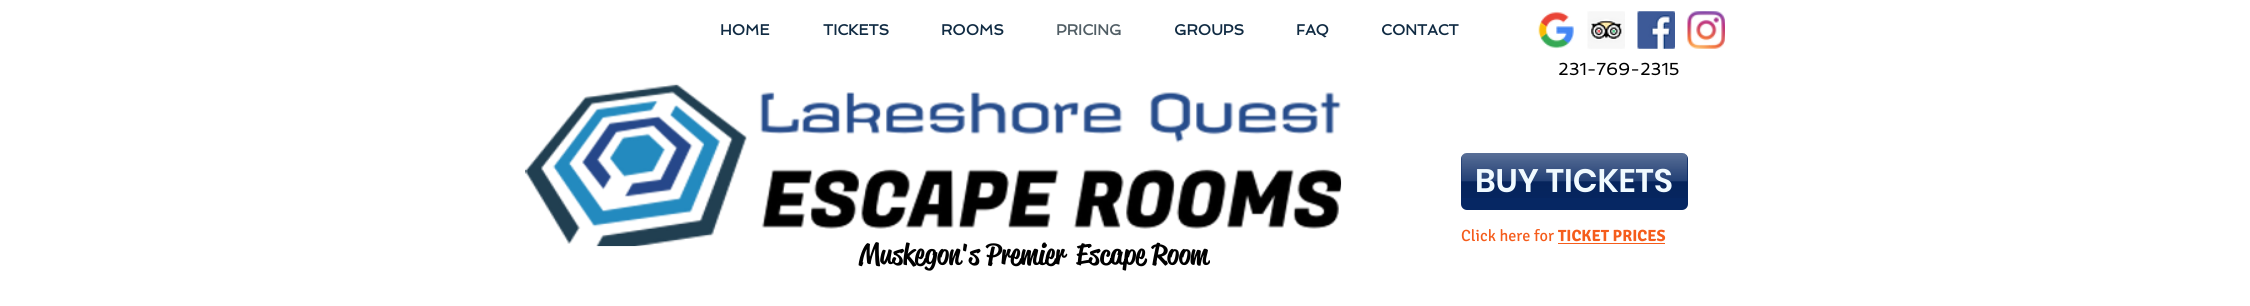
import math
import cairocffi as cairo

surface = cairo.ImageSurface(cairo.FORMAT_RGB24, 2250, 306)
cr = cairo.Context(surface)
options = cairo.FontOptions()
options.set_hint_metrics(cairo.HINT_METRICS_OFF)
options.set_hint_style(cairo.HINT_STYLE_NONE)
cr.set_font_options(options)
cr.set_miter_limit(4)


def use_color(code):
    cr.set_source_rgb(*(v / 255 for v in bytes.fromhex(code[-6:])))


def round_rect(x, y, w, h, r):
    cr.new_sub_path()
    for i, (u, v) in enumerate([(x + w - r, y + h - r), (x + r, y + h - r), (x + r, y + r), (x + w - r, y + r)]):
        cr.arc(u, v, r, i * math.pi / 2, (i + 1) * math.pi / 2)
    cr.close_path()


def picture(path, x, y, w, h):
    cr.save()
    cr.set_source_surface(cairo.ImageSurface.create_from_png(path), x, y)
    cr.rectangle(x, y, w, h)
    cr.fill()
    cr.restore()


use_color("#ffffff")
cr.paint()
cr.select_font_face("Spinnaker", cairo.FONT_SLANT_NORMAL, cairo.FONT_WEIGHT_BOLD)
cr.set_font_size(15)
use_color("#102b43")
cr.move_to(720, 35)
cr.show_text("HOME")
cr.move_to(823, 35)
cr.show_text("TICKETS")
cr.move_to(941, 35)
cr.show_text("ROOMS")
use_color("#515e65")
cr.move_to(1056, 35)
cr.show_text("PRICING")
use_color("#102b43")
cr.move_to(1174, 35)
cr.show_text("GROUPS")
cr.move_to(1296, 35)
cr.show_text("FAQ")
cr.move_to(1381, 35)
cr.show_text("CONTACT")
picture("img1.png", 1538, 11, 36, 38)
picture("img2.png", 1587, 11, 38, 38)
picture("img3.png", 1637, 11, 38, 38)
picture("img4.png", 1687, 11, 38, 38)
cr.select_font_face("Spinnaker")
cr.set_font_size(17.5)
use_color("#000000")
cr.move_to(1558, 75)
cr.show_text("231-769-2315")
use_color("#062763")
round_rect(1461, 153, 227, 57, 6)
cr.fill()
picture("img5.png", 1461, 153, 227, 45)
cr.select_font_face("Poppins SemiBold")
cr.set_font_size(32.5)
use_color("#f0faff")
cr.move_to(1475, 192)
cr.show_text("BUY TICKETS")
cr.select_font_face("Signika")
cr.set_font_size(16.25)
use_color("#f55c1b")
cr.move_to(1461, 241)
cr.show_text("Click here for")
cr.select_font_face("Signika", cairo.FONT_SLANT_NORMAL, cairo.FONT_WEIGHT_BOLD)
cr.move_to(1558, 241)
cr.show_text("TICKET PRICES")
cr.rectangle(1558, 243, 107, 1)
cr.fill()
picture("img6.png", 525, 83, 817, 164)
cr.select_font_face("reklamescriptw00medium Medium")
cr.set_font_size(28.75)
use_color("#000000")
cr.move_to(859, 264)
cr.show_text("Muskegon's Premier")
cr.move_to(1076, 264)
cr.show_text("Escape Room")
surface.write_to_png("result.png")
